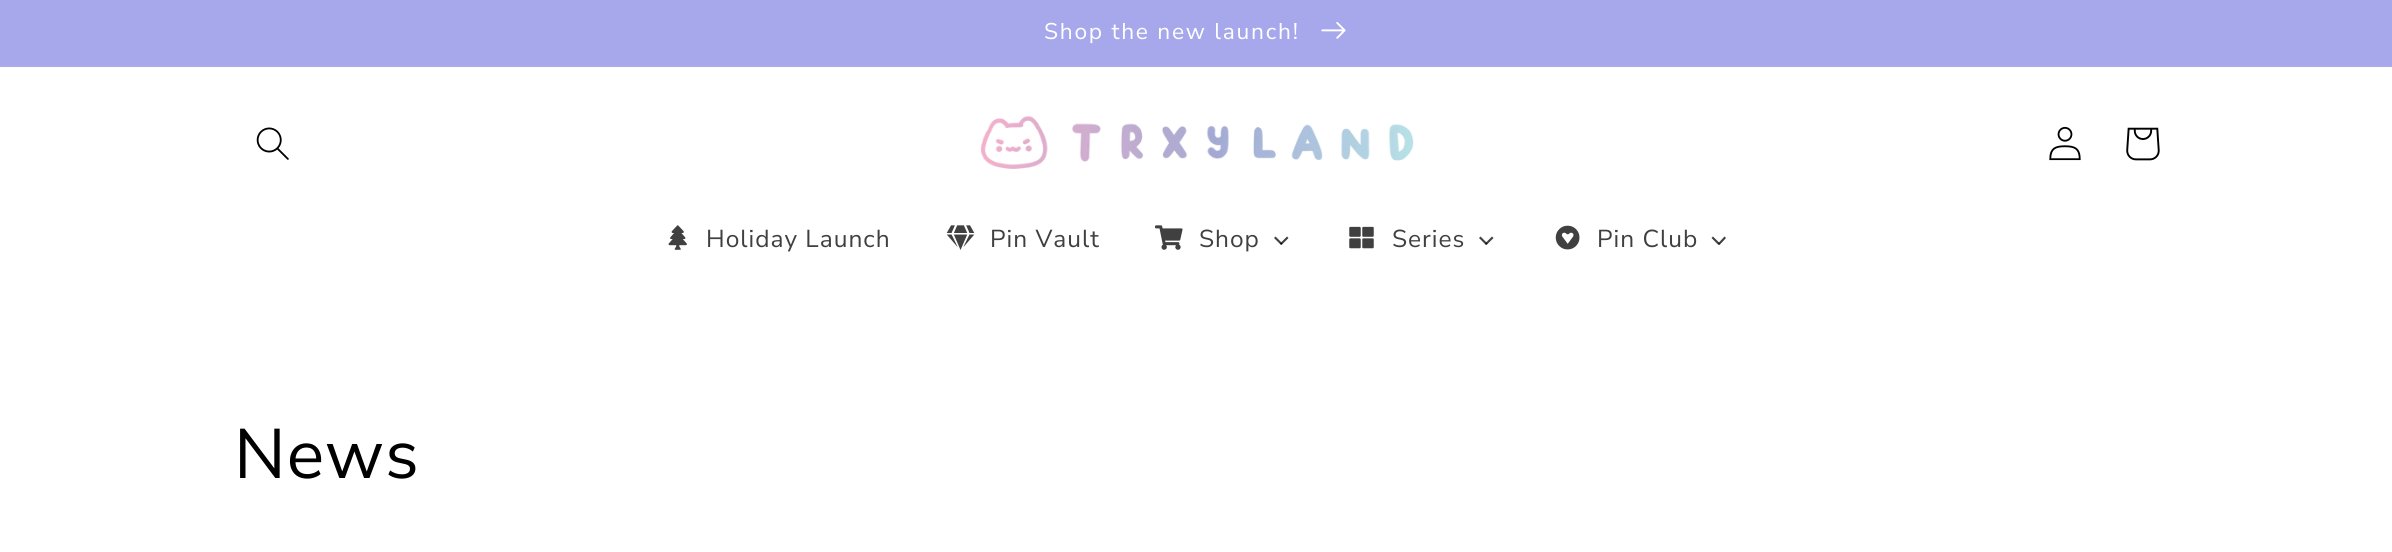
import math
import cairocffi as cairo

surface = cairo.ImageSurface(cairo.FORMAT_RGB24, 2392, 552)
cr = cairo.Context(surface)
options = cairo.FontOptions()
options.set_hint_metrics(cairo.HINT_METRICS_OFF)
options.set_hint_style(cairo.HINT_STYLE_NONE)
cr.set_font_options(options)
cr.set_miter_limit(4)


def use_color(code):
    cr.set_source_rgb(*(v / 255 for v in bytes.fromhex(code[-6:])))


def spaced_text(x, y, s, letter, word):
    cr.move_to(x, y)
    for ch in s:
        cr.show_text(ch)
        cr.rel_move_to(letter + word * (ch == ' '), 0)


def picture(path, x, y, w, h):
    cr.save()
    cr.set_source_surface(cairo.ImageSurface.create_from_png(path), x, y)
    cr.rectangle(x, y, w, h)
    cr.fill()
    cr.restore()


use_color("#ffffff")
cr.paint()
use_color("#a9a9ec")
cr.rectangle(0, 65, 2392, 2)
cr.fill()
use_color("#a6a8eb")
cr.rectangle(0, 0, 2392, 65)
cr.fill()
cr.select_font_face("Nunito Sans")
cr.set_font_size(22.75)
use_color("#ffffff")
spaced_text(1044, 39, "Shop the new launch!", 1.75, 0)
picture("img1.png", 1321, 22, 25, 17)
picture("img2.png", 256, 127, 33, 33)
picture("img3.png", 980, 116, 434, 53)
picture("img4.png", 2049, 126, 32, 35)
picture("img5.png", 2126, 127, 34, 34)
picture("img6.png", 668, 225, 19, 25)
cr.set_font_size(24.5)
use_color("#404040")
spaced_text(706, 247, "Holiday Launch", 1, 0)
picture("img7.png", 946, 225, 29, 25)
spaced_text(990, 247, "Pin Vault", 1, 0)
picture("img8.png", 1155, 225, 28, 25)
spaced_text(1199, 247, "Shop", 1, 0)
cr.new_path()
cr.move_to(1287, 236.5)
cr.line_to(1288.5, 238)
cr.line_to(1281.5, 245)
cr.line_to(1280, 243.5)
cr.close_path()
cr.fill()
cr.set_source_rgba(0, 0, 0, 0.75)
cr.new_path()
cr.move_to(1275.5, 236.5)
cr.line_to(1282.5, 243.5)
cr.line_to(1281, 245)
cr.line_to(1274, 238)
cr.close_path()
cr.fill()
picture("img9.png", 1349, 226, 25, 23)
use_color("#404040")
spaced_text(1392, 247, "Series", 1, 0)
cr.new_path()
cr.move_to(1492, 236.5)
cr.line_to(1493.5, 238)
cr.line_to(1486.5, 245)
cr.line_to(1485, 243.5)
cr.close_path()
cr.fill()
cr.set_source_rgba(0, 0, 0, 0.75)
cr.new_path()
cr.move_to(1480.5, 236.5)
cr.line_to(1487.5, 243.5)
cr.line_to(1486, 245)
cr.line_to(1479, 238)
cr.close_path()
cr.fill()
picture("img10.png", 1555, 225, 25, 25)
use_color("#404040")
spaced_text(1597, 247, "Pin Club", 1, 0)
cr.new_path()
cr.move_to(1724.5, 236.5)
cr.line_to(1726, 238)
cr.line_to(1719.5, 245)
cr.line_to(1718, 243.5)
cr.close_path()
cr.fill()
cr.set_source_rgba(0, 0, 0, 0.75)
cr.new_path()
cr.move_to(1713, 236.5)
cr.line_to(1720, 243.5)
cr.line_to(1718.5, 245)
cr.line_to(1711.5, 238)
cr.close_path()
cr.fill()
cr.set_font_size(70)
use_color("#000000")
spaced_text(234, 478, "News", 1, 0)
surface.write_to_png("result.png")
